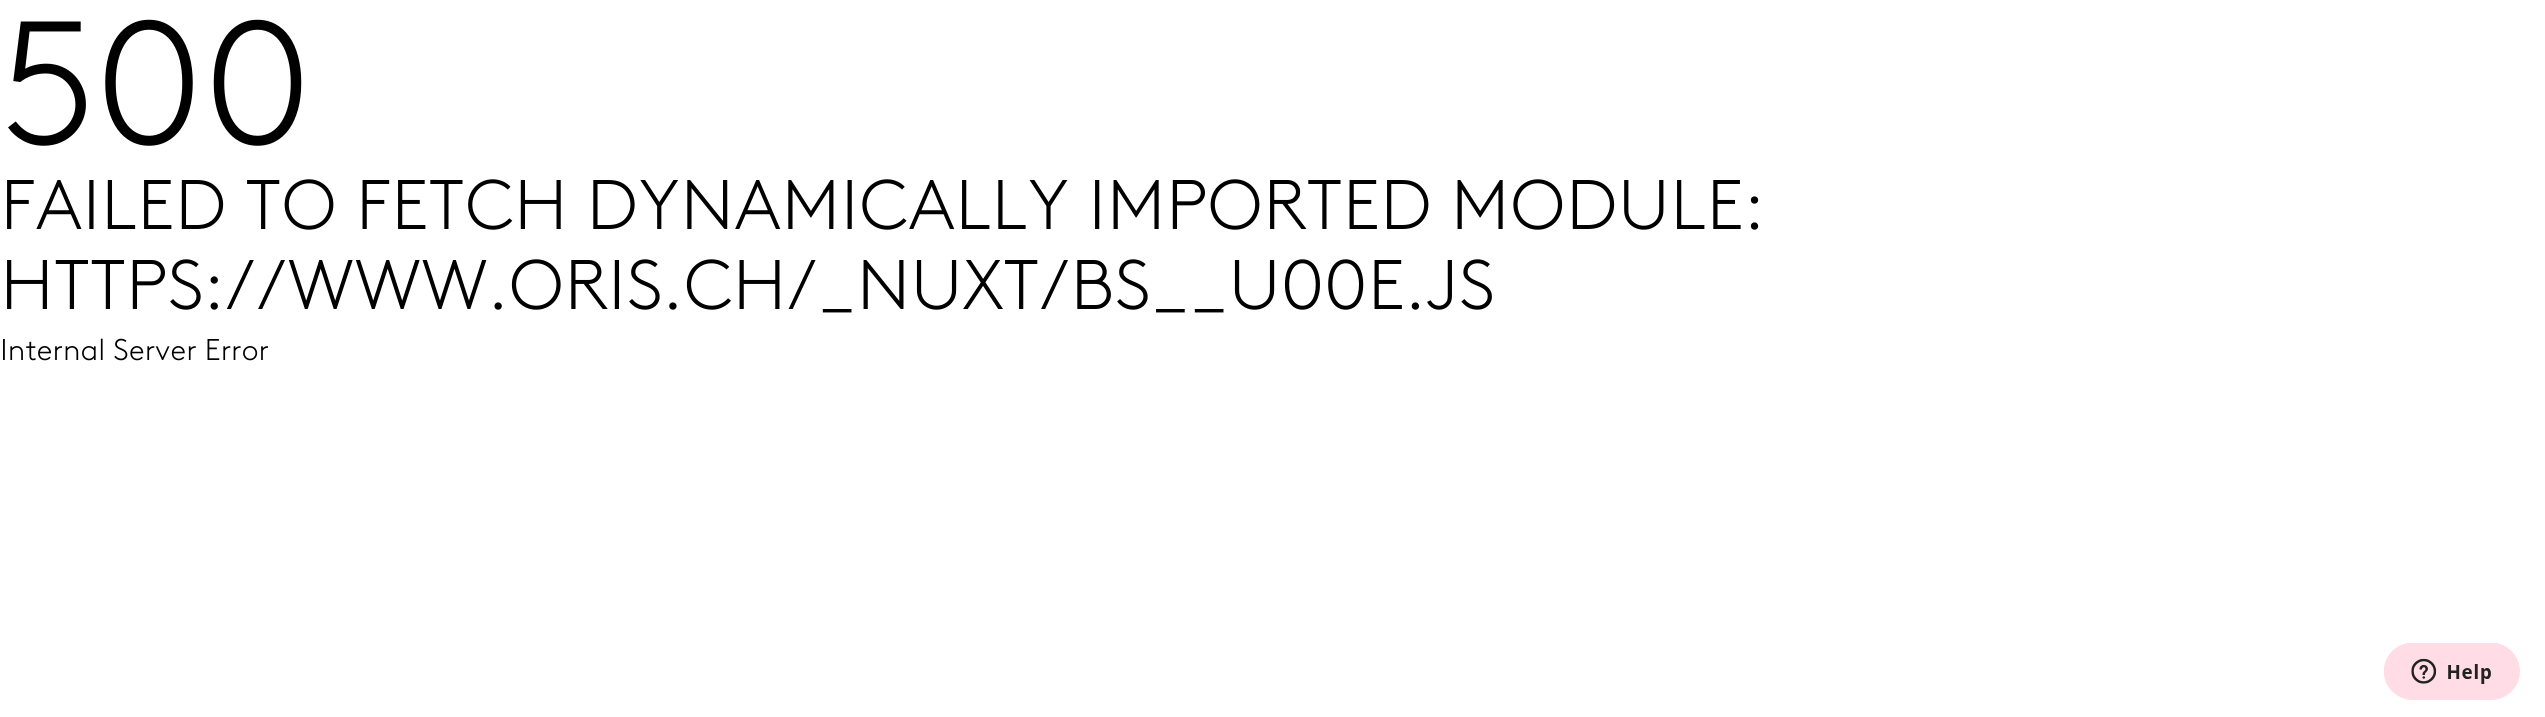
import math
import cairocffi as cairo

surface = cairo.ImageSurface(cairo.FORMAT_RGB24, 2545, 717)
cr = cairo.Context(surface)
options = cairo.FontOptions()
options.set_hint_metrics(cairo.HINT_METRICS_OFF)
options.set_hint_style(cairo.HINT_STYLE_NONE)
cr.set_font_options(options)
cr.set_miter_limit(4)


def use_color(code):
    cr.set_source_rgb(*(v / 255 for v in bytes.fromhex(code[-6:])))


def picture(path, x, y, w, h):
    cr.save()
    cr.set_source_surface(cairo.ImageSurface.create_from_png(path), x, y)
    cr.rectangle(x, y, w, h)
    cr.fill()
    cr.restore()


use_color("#ffffff")
cr.paint()
cr.select_font_face("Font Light")
cr.set_font_size(175)
use_color("#000000")
cr.move_to(0, 144)
cr.show_text("500")
cr.set_font_size(70)
cr.move_to(0, 229)
cr.show_text("FAILED TO FETCH DYNAMICALLY IMPORTED MODULE:")
cr.move_to(0, 309)
cr.show_text("HTTPS://WWW.ORIS.CH/_NUXT/BS__U00E.JS")
cr.set_font_size(30)
cr.move_to(0, 360)
cr.show_text("Internal Server Error")
picture("img1.png", 2384, 642, 136, 58)
surface.write_to_png("result.png")
